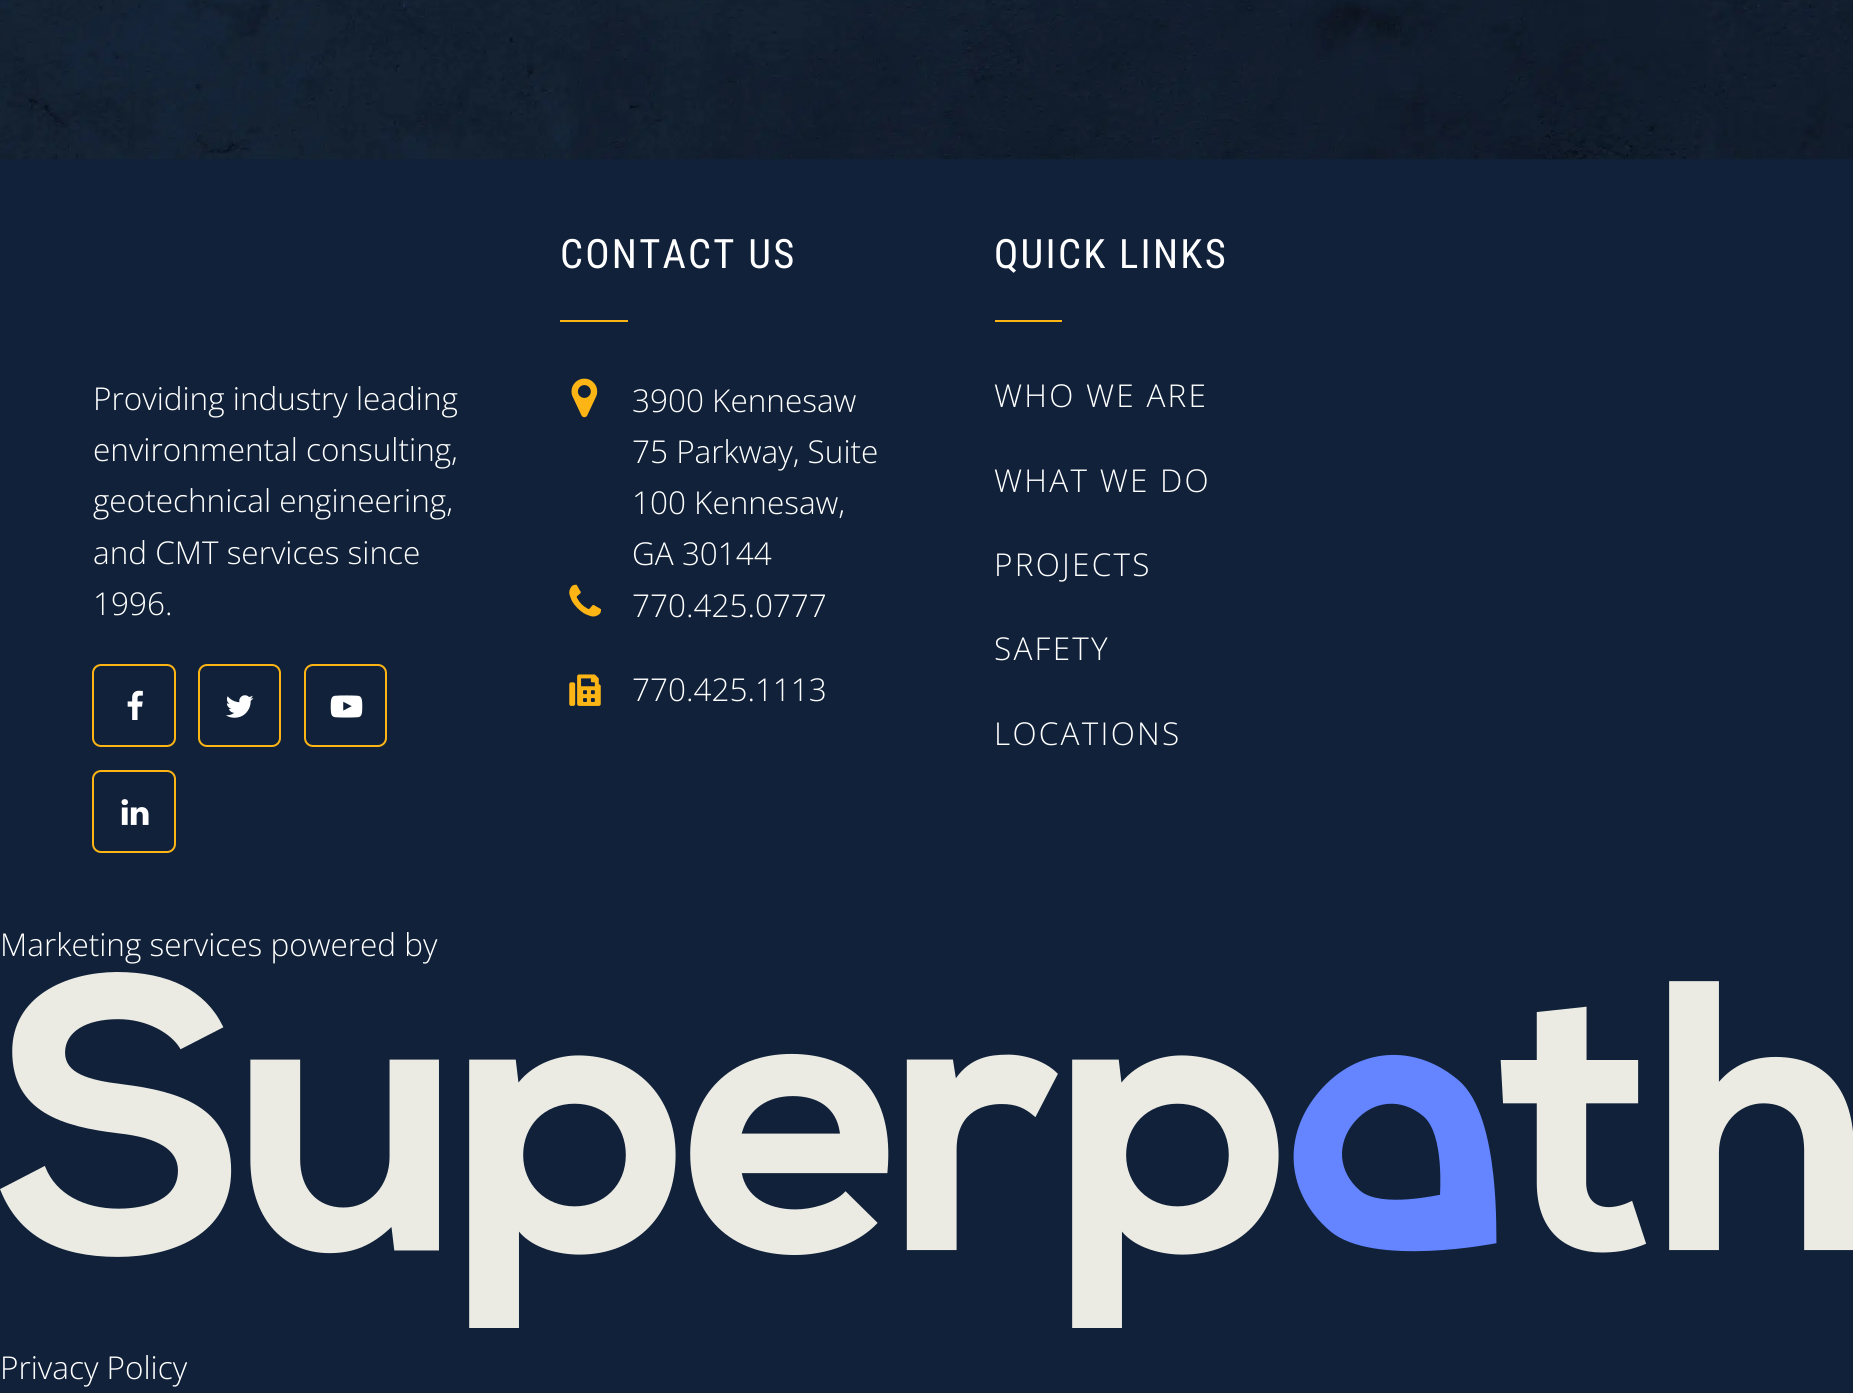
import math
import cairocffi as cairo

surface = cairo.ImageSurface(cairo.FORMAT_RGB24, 1853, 1393)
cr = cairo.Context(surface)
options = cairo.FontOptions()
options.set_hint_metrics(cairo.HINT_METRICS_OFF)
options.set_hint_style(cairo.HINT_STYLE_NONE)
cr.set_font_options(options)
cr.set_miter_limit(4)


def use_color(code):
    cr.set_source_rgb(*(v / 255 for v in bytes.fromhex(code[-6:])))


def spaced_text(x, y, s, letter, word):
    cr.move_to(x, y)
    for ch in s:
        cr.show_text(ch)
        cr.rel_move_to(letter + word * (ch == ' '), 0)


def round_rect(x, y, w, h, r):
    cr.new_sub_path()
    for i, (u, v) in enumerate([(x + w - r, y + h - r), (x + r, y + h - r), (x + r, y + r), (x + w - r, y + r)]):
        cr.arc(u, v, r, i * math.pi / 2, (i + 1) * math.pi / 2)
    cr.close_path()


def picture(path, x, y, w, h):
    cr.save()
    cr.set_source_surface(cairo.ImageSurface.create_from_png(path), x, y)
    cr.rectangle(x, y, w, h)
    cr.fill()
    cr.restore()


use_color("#102139")
cr.paint()
picture("img1.png", 0, 0, 1853, 160)
cr.select_font_face("Open Sans Light")
cr.set_font_size(31.5)
use_color("#ffffff")
cr.move_to(93, 410)
cr.show_text("Providing industry leading")
cr.move_to(93, 461)
cr.show_text("environmental consulting,")
cr.move_to(93, 512)
cr.show_text("geotechnical engineering,")
cr.move_to(93, 564)
cr.show_text("and CMT services since")
cr.move_to(93, 615)
cr.show_text("1996.")
round_rect(93, 665, 82, 81, 8)
use_color("#fdb515")
cr.stroke()
picture("img2.png", 127, 690, 16, 30)
round_rect(199, 665, 81, 81, 8)
cr.stroke()
picture("img3.png", 226, 695, 28, 23)
round_rect(305, 665, 81, 81, 8)
cr.stroke()
picture("img4.png", 330, 695, 33, 23)
round_rect(93, 771, 82, 81, 8)
cr.stroke()
picture("img5.png", 121, 799, 28, 26)
cr.select_font_face("Roboto Condensed")
cr.set_font_size(40.5)
use_color("#ffffff")
spaced_text(560, 268, "CONTACT US", 2.25, 0)
use_color("#fdb515")
cr.rectangle(560, 320, 68, 2)
cr.fill()
picture("img6.png", 571, 378, 27, 40)
cr.select_font_face("Open Sans Light")
cr.set_font_size(31.5)
use_color("#ffffff")
cr.move_to(632, 412)
cr.show_text("3900 Kennesaw")
cr.move_to(632, 463)
cr.show_text("75 Parkway, Suite")
cr.move_to(632, 514)
cr.show_text("100 Kennesaw,")
cr.move_to(632, 565)
cr.show_text("GA 30144")
picture("img7.png", 569, 584, 33, 33)
cr.move_to(632, 617)
cr.show_text("770.425.0777")
picture("img8.png", 569, 674, 32, 32)
cr.move_to(632, 701)
cr.show_text("770.425.1113")
cr.select_font_face("Roboto Condensed")
cr.set_font_size(40.5)
spaced_text(994, 268, "QUICK LINKS", 2.25, 0)
use_color("#fdb515")
cr.rectangle(995, 320, 67, 2)
cr.fill()
cr.select_font_face("Open Sans Light")
cr.set_font_size(31.5)
use_color("#ffffff")
spaced_text(994, 407, "WHO WE ARE", 2.25, 0)
spaced_text(994, 492, "WHAT WE DO", 2.25, 0)
spaced_text(994, 576, "PROJECTS", 2.25, 0)
spaced_text(994, 660, "SAFETY", 2.25, 0)
spaced_text(994, 745, "LOCATIONS", 2.25, 0)
cr.move_to(0, 956)
cr.show_text("Marketing services powered by")
picture("img9.png", 0, 972, 1853, 356)
cr.move_to(0, 1379)
cr.show_text("Privacy Policy")
surface.write_to_png("result.png")
